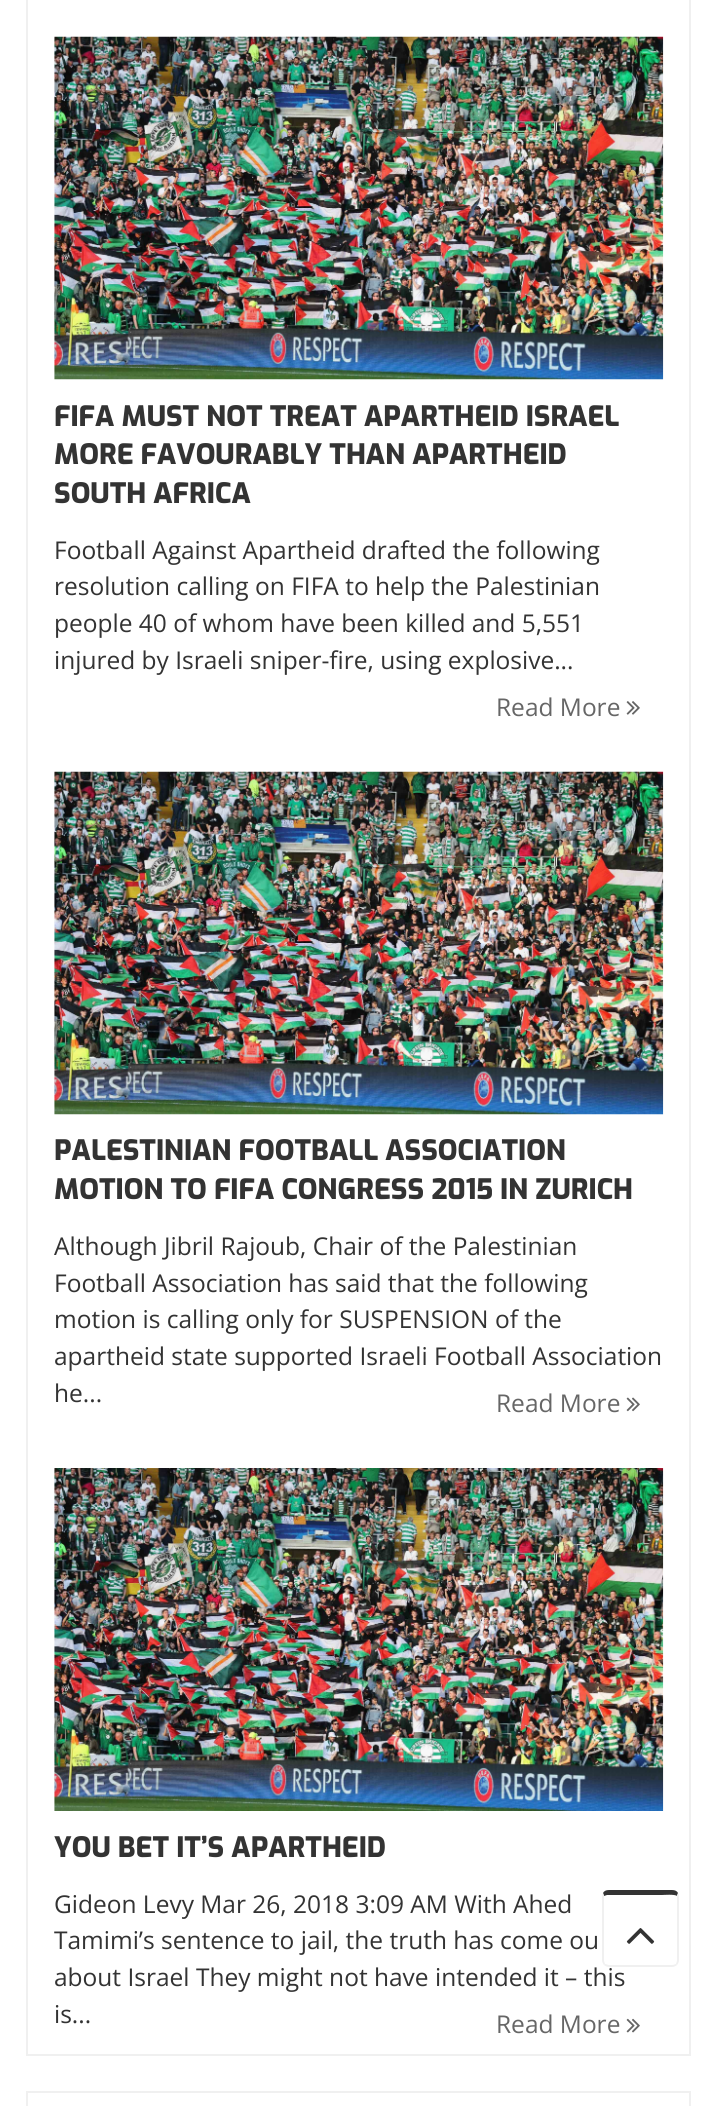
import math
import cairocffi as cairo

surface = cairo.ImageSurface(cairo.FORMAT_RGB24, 716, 2106)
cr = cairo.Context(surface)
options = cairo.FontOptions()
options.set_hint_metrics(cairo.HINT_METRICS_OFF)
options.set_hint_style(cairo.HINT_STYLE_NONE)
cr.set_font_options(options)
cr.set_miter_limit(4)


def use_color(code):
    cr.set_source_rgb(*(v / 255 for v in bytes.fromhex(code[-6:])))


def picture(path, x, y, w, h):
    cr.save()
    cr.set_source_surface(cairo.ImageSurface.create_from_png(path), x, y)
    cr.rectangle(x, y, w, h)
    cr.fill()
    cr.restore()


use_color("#ffffff")
cr.paint()
cr.rectangle(27, -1, 663, 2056)
use_color("#f0f0f0")
cr.stroke()
picture("img1.png", 54, 36, 610, 344)
cr.select_font_face("Exo ExtraBold")
cr.set_font_size(28)
use_color("#333333")
cr.move_to(54, 426)
cr.show_text("FIFA MUST NOT TREAT APARTHEID ISRAEL")
cr.move_to(54, 464)
cr.show_text("MORE FAVOURABLY THAN APARTHEID")
cr.move_to(54, 503)
cr.show_text("SOUTH AFRICA")
cr.select_font_face("Open Sans")
cr.set_font_size(24.5)
cr.move_to(54, 559)
cr.show_text("Football Against Apartheid drafted the following")
cr.move_to(54, 595)
cr.show_text("resolution calling on FIFA to help the Palestinian")
cr.move_to(54, 632)
cr.show_text("people 40 of whom have been killed and 5,551")
cr.move_to(54, 669)
cr.show_text("injured by Israeli sniper-fire, using explosive...")
use_color("#666666")
cr.move_to(496, 716)
cr.show_text("Read More")
picture("img2.png", 626, 701, 14, 14)
picture("img1.png", 54, 771, 610, 344)
cr.select_font_face("Exo ExtraBold")
cr.set_font_size(28)
use_color("#333333")
cr.move_to(54, 1160)
cr.show_text("PALESTINIAN FOOTBALL ASSOCIATION")
cr.move_to(54, 1199)
cr.show_text("MOTION TO FIFA CONGRESS 2015 IN ZURICH")
cr.select_font_face("Open Sans")
cr.set_font_size(24.5)
cr.move_to(54, 1255)
cr.show_text("Although Jibril Rajoub, Chair of the Palestinian")
cr.move_to(54, 1292)
cr.show_text("Football Association has said that the following")
cr.move_to(54, 1328)
cr.show_text("motion is calling only for SUSPENSION of the")
cr.move_to(54, 1365)
cr.show_text("apartheid state supported Israeli Football Association")
cr.move_to(54, 1402)
cr.show_text("he...")
use_color("#666666")
cr.move_to(496, 1412)
cr.show_text("Read More")
picture("img3.png", 626, 1397, 14, 15)
picture("img4.png", 54, 1468, 610, 343)
cr.select_font_face("Exo ExtraBold")
cr.set_font_size(28)
use_color("#333333")
cr.move_to(54, 1857)
cr.show_text("YOU BET IT’S APARTHEID")
cr.select_font_face("Open Sans")
cr.set_font_size(24.5)
cr.move_to(54, 1913)
cr.show_text("Gideon Levy Mar 26, 2018 3:09 AM With Ahed")
cr.move_to(54, 1949)
cr.show_text("Tamimi’s sentence to jail, the truth has come ou")
cr.move_to(54, 1986)
cr.show_text("about Israel They might not have intended it – this")
cr.move_to(54, 2023)
cr.show_text("is...")
use_color("#666666")
cr.move_to(496, 2033)
cr.show_text("Read More")
picture("img5.png", 626, 2018, 14, 15)
cr.rectangle(27, 2092, 663, 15)
use_color("#f0f0f0")
cr.stroke()
use_color("#333333")
cr.new_path()
cr.move_to(609, 1890)
cr.curve_to(606, 1890, 604, 1891, 603, 1893)
cr.line_to(604, 1896)
cr.line_to(607, 1895)
cr.line_to(662, 1895)
cr.curve_to(663, 1895, 675, 1894, 677, 1896)
cr.line_to(678, 1893)
cr.curve_to(677, 1891, 675, 1890, 672, 1890)
cr.close_path()
cr.fill()
use_color("#f0f0f0")
cr.new_path()
cr.move_to(679, 1960)
cr.line_to(679, 1897)
cr.curve_to(679, 1896, 679, 1894, 678, 1893)
cr.line_to(677, 1896)
cr.line_to(677, 1961)
cr.line_to(676, 1964)
cr.line_to(677, 1965)
cr.curve_to(678, 1964, 679, 1962, 679, 1960)
cr.close_path()
cr.fill()
cr.new_path()
cr.move_to(609, 1967)
cr.line_to(672, 1967)
cr.curve_to(674, 1967, 676, 1966, 677, 1965)
cr.line_to(676, 1964)
cr.curve_to(675, 1964, 674, 1965, 672, 1965)
cr.line_to(609, 1965)
cr.curve_to(608, 1965, 606, 1964, 605, 1964)
cr.line_to(604, 1965)
cr.curve_to(605, 1966, 607, 1967, 609, 1967)
cr.close_path()
cr.fill()
cr.new_path()
cr.move_to(602, 1897)
cr.line_to(602, 1960)
cr.curve_to(602, 1962, 603, 1964, 604, 1965)
cr.line_to(605, 1964)
cr.line_to(604, 1961)
cr.line_to(604, 1896)
cr.line_to(603, 1893)
cr.close_path()
cr.fill()
picture("img6.png", 626, 1928, 29, 16)
surface.write_to_png("result.png")
